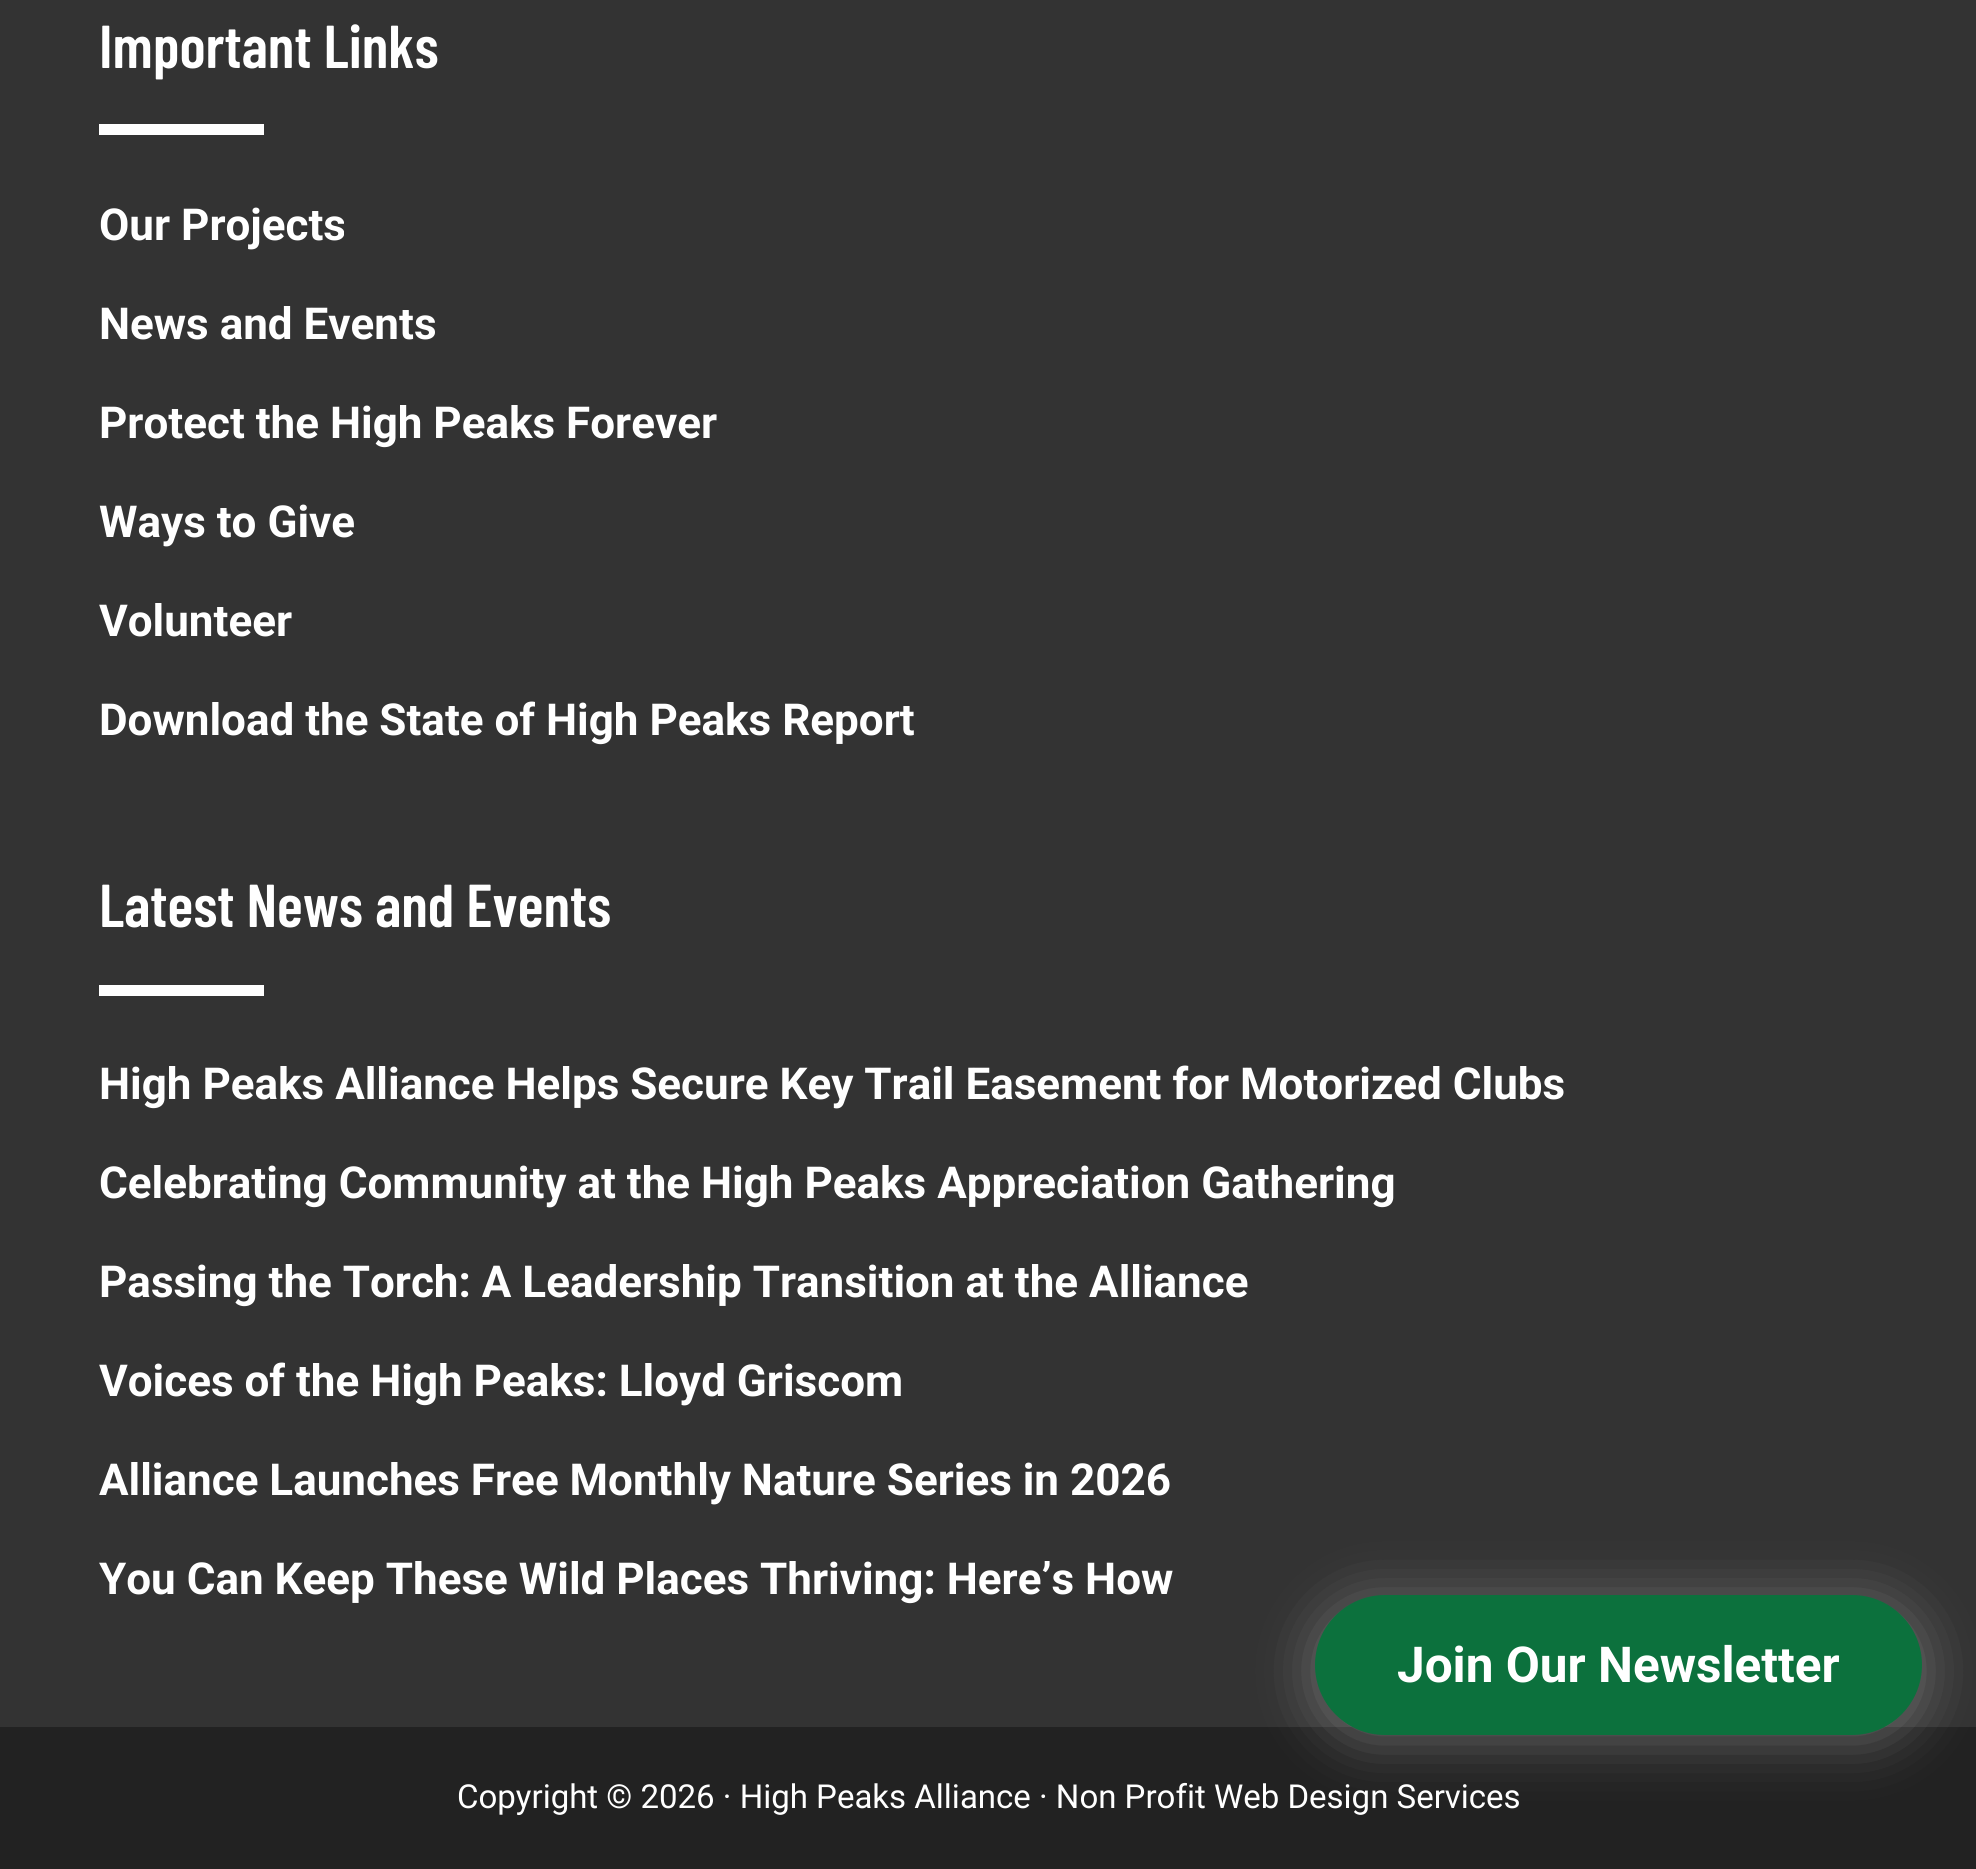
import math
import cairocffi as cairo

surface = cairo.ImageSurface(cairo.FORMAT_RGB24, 1976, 1869)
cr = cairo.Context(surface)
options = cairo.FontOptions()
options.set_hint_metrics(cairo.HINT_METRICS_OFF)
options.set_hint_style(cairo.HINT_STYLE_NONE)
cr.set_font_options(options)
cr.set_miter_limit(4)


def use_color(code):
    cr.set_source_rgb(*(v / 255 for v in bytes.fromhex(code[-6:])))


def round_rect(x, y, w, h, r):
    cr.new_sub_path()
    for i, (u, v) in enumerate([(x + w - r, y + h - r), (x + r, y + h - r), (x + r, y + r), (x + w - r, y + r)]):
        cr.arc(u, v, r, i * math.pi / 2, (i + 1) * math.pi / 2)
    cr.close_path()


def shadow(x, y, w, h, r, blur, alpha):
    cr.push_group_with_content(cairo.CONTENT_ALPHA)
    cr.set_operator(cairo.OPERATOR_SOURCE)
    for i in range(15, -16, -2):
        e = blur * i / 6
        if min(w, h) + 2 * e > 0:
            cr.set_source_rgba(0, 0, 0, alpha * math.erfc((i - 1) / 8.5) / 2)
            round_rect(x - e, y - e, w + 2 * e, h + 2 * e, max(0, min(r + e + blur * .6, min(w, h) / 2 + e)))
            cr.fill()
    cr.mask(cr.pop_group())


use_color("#333333")
cr.paint()
cr.select_font_face("Barlow Condensed SemiBold")
cr.set_font_size(60.5)
use_color("#ffffff")
cr.move_to(99, 68)
cr.show_text("Important Links")
cr.rectangle(99, 124, 165, 11)
cr.fill()
cr.select_font_face("Roboto", cairo.FONT_SLANT_NORMAL, cairo.FONT_WEIGHT_BOLD)
cr.set_font_size(44)
cr.move_to(99, 240)
cr.show_text("Our Projects")
cr.move_to(99, 339)
cr.show_text("News and Events")
cr.move_to(99, 438)
cr.show_text("Protect the High Peaks Forever")
cr.move_to(99, 537)
cr.show_text("Ways to Give")
cr.move_to(99, 636)
cr.show_text("Volunteer")
cr.move_to(99, 735)
cr.show_text("Download the State of High Peaks Report")
cr.select_font_face("Barlow Condensed SemiBold")
cr.set_font_size(60.5)
cr.move_to(99, 927)
cr.show_text("Latest News and Events")
cr.rectangle(99, 985, 165, 11)
cr.fill()
cr.select_font_face("Roboto", cairo.FONT_SLANT_NORMAL, cairo.FONT_WEIGHT_BOLD)
cr.set_font_size(44)
cr.move_to(99, 1099)
cr.show_text("High Peaks Alliance Helps Secure Key Trail Easement for Motorized Clubs")
cr.move_to(99, 1198)
cr.show_text("Celebrating Community at the High Peaks Appreciation Gathering")
cr.move_to(99, 1297)
cr.show_text("Passing the Torch: A Leadership Transition at the Alliance")
cr.move_to(99, 1396)
cr.show_text("Voices of the High Peaks: Lloyd Griscom")
cr.move_to(99, 1495)
cr.show_text("Alliance Launches Free Monthly Nature Series in 2026")
cr.move_to(99, 1594)
cr.show_text("You Can Keep These Wild Places Thriving: Here’s How")
use_color("#222222")
cr.rectangle(0, 1727, 1976, 142)
cr.fill()
use_color("#ffffff")
shadow(1315, 1601, 607, 140, 70, 27.5, 0.3)
use_color("#0c713d")
round_rect(1315, 1595, 607, 140, 70)
cr.fill()
cr.set_font_size(49.5)
use_color("#ffffff")
cr.move_to(1397, 1682)
cr.show_text("Join Our Newsletter")
cr.select_font_face("Roboto")
cr.set_font_size(33)
cr.move_to(457, 1808)
cr.show_text("Copyright © 2026 · High Peaks Alliance · Non Profit Web Design Services")
surface.write_to_png("result.png")
